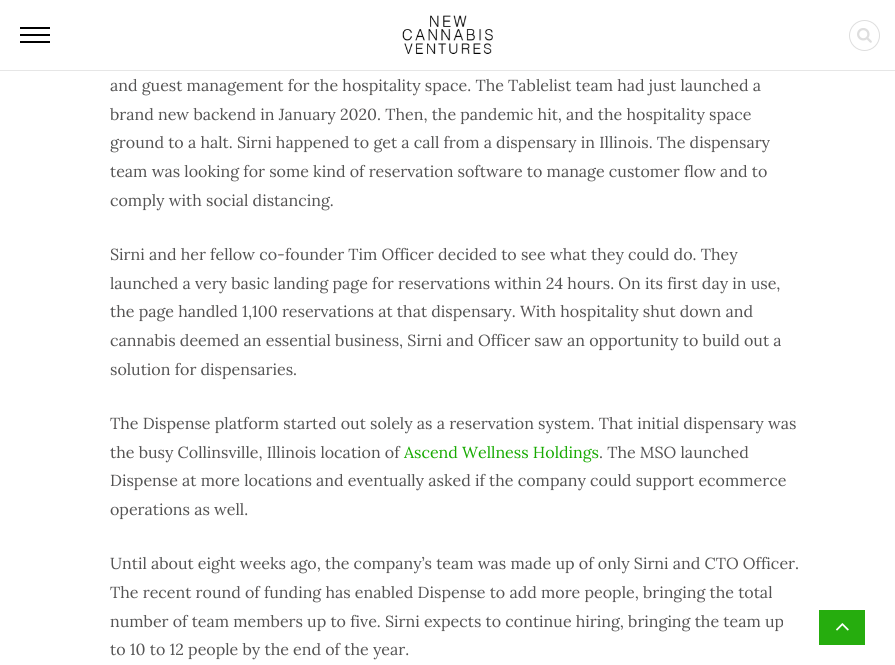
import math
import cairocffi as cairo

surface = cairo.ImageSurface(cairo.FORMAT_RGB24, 895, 665)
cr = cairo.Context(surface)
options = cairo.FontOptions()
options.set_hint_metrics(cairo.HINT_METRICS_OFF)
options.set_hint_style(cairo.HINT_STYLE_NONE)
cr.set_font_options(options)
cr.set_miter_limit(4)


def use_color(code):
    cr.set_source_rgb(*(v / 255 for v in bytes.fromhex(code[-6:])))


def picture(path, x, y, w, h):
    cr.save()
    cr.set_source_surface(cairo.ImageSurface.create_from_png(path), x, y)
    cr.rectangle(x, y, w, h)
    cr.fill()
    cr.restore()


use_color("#ffffff")
cr.paint()
use_color("#e6e6e6")
cr.rectangle(0, 70, 895, 1)
cr.fill()
use_color("#000000")
cr.rectangle(20, 27, 30, 2)
cr.fill()
cr.rectangle(20, 34, 30, 2)
cr.fill()
cr.rectangle(20, 41, 30, 2)
cr.fill()
picture("img1.png", 402, 15, 91, 39)
cr.arc(864.5, 35.5, 15, 0, 2 * math.pi)
use_color("#dedede")
cr.set_line_width(1)
cr.stroke()
picture("img2.png", 857, 28, 15, 15)
cr.select_font_face("Lora")
cr.set_font_size(16)
use_color("#545353")
cr.move_to(110, 91)
cr.show_text("and guest management for the hospitality space. The Tablelist team had just launched a")
cr.move_to(110, 120)
cr.show_text("brand new backend in January 2020. Then, the pandemic hit, and the hospitality space")
cr.move_to(110, 148)
cr.show_text("ground to a halt. Sirni happened to get a call from a dispensary in Illinois. The dispensary")
cr.move_to(110, 177)
cr.show_text("team was looking for some kind of reservation software to manage customer flow and to")
cr.move_to(110, 206)
cr.show_text("comply with social distancing.")
cr.move_to(110, 260)
cr.show_text("Sirni and her fellow co-founder Tim Officer decided to see what they could do. They")
cr.move_to(110, 289)
cr.show_text("launched a very basic landing page for reservations within 24 hours. On its first day in use,")
cr.move_to(110, 317)
cr.show_text("the page handled 1,100 reservations at that dispensary. With hospitality shut down and")
cr.move_to(110, 346)
cr.show_text("cannabis deemed an essential business, Sirni and Officer saw an opportunity to build out a")
cr.move_to(110, 375)
cr.show_text("solution for dispensaries.")
cr.move_to(110, 429)
cr.show_text("The Dispense platform started out solely as a reservation system. That initial dispensary was")
cr.move_to(110, 458)
cr.show_text("the busy Collinsville, Illinois location of")
use_color("#16aa00")
cr.move_to(404, 458)
cr.show_text("Ascend Wellness Holdings")
use_color("#545353")
cr.move_to(599, 458)
cr.show_text(". The MSO launched")
cr.move_to(110, 486)
cr.show_text("Dispense at more locations and eventually asked if the company could support ecommerce")
cr.move_to(110, 515)
cr.show_text("operations as well.")
cr.move_to(110, 569)
cr.show_text("Until about eight weeks ago, the company’s team was made up of only Sirni and CTO Officer.")
cr.move_to(110, 598)
cr.show_text("The recent round of funding has enabled Dispense to add more people, bringing the total")
cr.move_to(110, 627)
cr.show_text("number of team members up to five. Sirni expects to continue hiring, bringing the team up")
cr.move_to(110, 655)
cr.show_text("to 10 to 12 people by the end of the year.")
use_color("#26ad0e")
cr.rectangle(819, 610, 46, 35)
cr.fill()
picture("img3.png", 836, 623, 13, 8)
surface.write_to_png("result.png")
